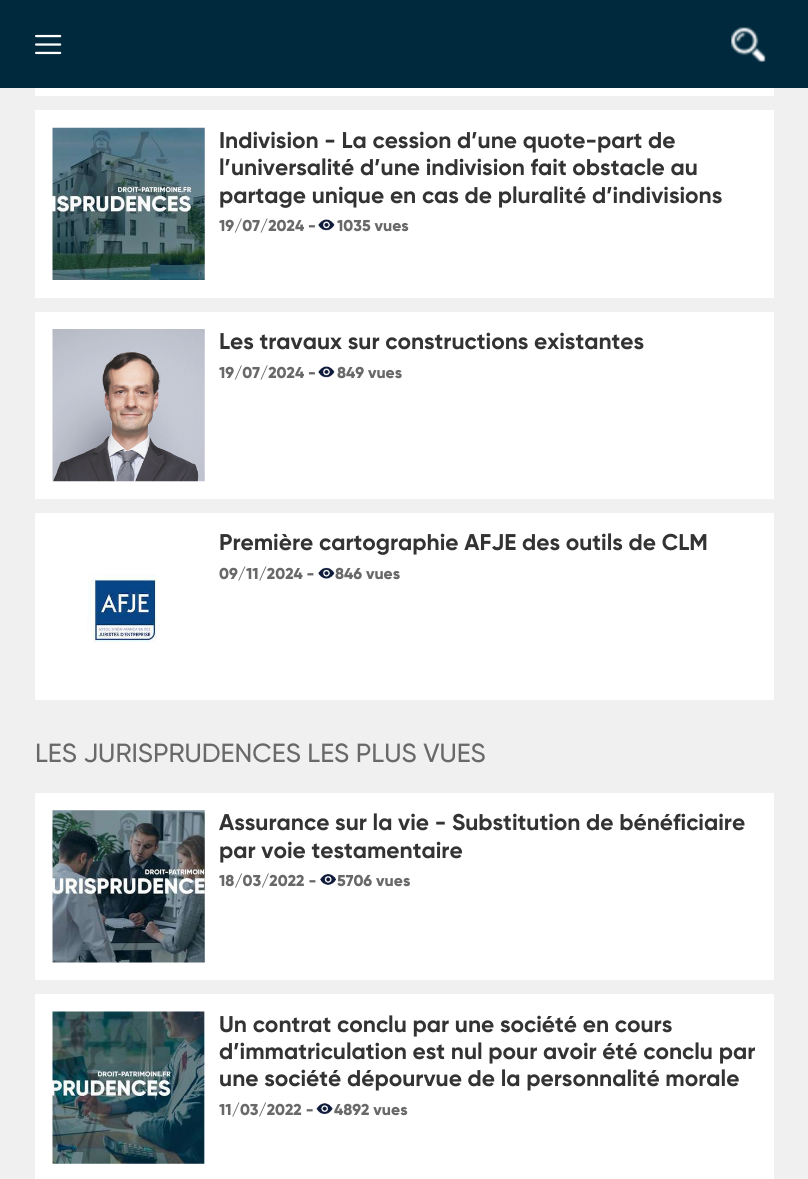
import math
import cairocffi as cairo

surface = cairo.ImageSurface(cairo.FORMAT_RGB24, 808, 1179)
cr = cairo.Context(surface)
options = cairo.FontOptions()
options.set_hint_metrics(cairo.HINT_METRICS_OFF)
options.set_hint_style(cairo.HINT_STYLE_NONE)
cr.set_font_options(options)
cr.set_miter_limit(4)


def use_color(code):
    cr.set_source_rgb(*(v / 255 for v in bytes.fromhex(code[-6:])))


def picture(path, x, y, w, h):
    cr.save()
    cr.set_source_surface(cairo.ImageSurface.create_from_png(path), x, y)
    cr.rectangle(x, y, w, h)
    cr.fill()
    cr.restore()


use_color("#f0f0f0")
cr.paint()
use_color("#00293d")
cr.rectangle(0, 0, 808, 88)
cr.fill()
picture("img1.png", 35, 34, 27, 21)
picture("img2.png", 731, 27, 35, 35)
use_color("#ffffff")
cr.rectangle(35, 88, 739, 8)
cr.fill()
cr.rectangle(35, 110, 739, 188)
cr.fill()
picture("img3.png", 52, 127, 153, 153)
cr.select_font_face("Gilroy", cairo.FONT_SLANT_NORMAL, cairo.FONT_WEIGHT_BOLD)
cr.set_font_size(22.75)
use_color("#333333")
cr.move_to(219, 148)
cr.show_text("Indivision - La cession d’une quote-part de")
cr.move_to(219, 175)
cr.show_text("l’universalité d’une indivision fait obstacle au")
cr.move_to(219, 203)
cr.show_text("partage unique en cas de pluralité d’indivisions")
cr.select_font_face("Gilroy ExtraBold")
cr.set_font_size(15.75)
use_color("#696969")
cr.move_to(219, 231)
cr.show_text("19/07/2024 -")
picture("img4.png", 318, 219, 17, 12)
cr.move_to(337, 231)
cr.show_text("1035 vues")
use_color("#ffffff")
cr.rectangle(35, 312, 739, 187)
cr.fill()
picture("img5.png", 52, 329, 153, 153)
cr.select_font_face("Gilroy", cairo.FONT_SLANT_NORMAL, cairo.FONT_WEIGHT_BOLD)
cr.set_font_size(22.75)
use_color("#333333")
cr.move_to(219, 349)
cr.show_text("Les travaux sur constructions existantes")
cr.select_font_face("Gilroy ExtraBold")
cr.set_font_size(15.75)
use_color("#696969")
cr.move_to(219, 378)
cr.show_text("19/07/2024 -")
picture("img4.png", 318, 366, 17, 12)
cr.move_to(337, 378)
cr.show_text("849 vues")
use_color("#ffffff")
cr.rectangle(35, 513, 739, 187)
cr.fill()
cr.select_font_face("Gilroy", cairo.FONT_SLANT_NORMAL, cairo.FONT_WEIGHT_BOLD)
cr.set_font_size(22.75)
use_color("#333333")
cr.move_to(219, 550)
cr.show_text("Première cartographie AFJE des outils de CLM")
cr.select_font_face("Gilroy ExtraBold")
cr.set_font_size(15.75)
use_color("#696969")
cr.move_to(219, 579)
cr.show_text("09/11/2024 -")
picture("img6.png", 318, 567, 17, 12)
cr.move_to(335, 579)
cr.show_text("846 vues")
picture("img7.png", 87, 574, 70, 69)
cr.select_font_face("Gilroy Medium")
cr.set_font_size(26.25)
cr.move_to(35, 762)
cr.show_text("LES JURISPRUDENCES LES PLUS VUES")
use_color("#ffffff")
cr.rectangle(35, 793, 739, 187)
cr.fill()
picture("img8.png", 52, 810, 153, 153)
cr.select_font_face("Gilroy", cairo.FONT_SLANT_NORMAL, cairo.FONT_WEIGHT_BOLD)
cr.set_font_size(22.75)
use_color("#333333")
cr.move_to(219, 830)
cr.show_text("Assurance sur la vie - Substitution de bénéficiaire")
cr.move_to(219, 858)
cr.show_text("par voie testamentaire")
cr.select_font_face("Gilroy ExtraBold")
cr.set_font_size(15.75)
use_color("#696969")
cr.move_to(219, 886)
cr.show_text("18/03/2022 -")
picture("img9.png", 320, 874, 16, 11)
cr.move_to(337, 886)
cr.show_text("5706 vues")
use_color("#ffffff")
cr.rectangle(35, 994, 739, 185)
cr.fill()
picture("img10.png", 52, 1011, 153, 153)
cr.select_font_face("Gilroy", cairo.FONT_SLANT_NORMAL, cairo.FONT_WEIGHT_BOLD)
cr.set_font_size(22.75)
use_color("#333333")
cr.move_to(219, 1032)
cr.show_text("Un contrat conclu par une société en cours")
cr.move_to(219, 1059)
cr.show_text("d’immatriculation est nul pour avoir été conclu par")
cr.move_to(219, 1086)
cr.show_text("une société dépourvue de la personnalité morale")
cr.select_font_face("Gilroy ExtraBold")
cr.set_font_size(15.75)
use_color("#696969")
cr.move_to(219, 1115)
cr.show_text("11/03/2022 -")
picture("img11.png", 316, 1103, 17, 11)
cr.move_to(334, 1115)
cr.show_text("4892 vues")
surface.write_to_png("result.png")
